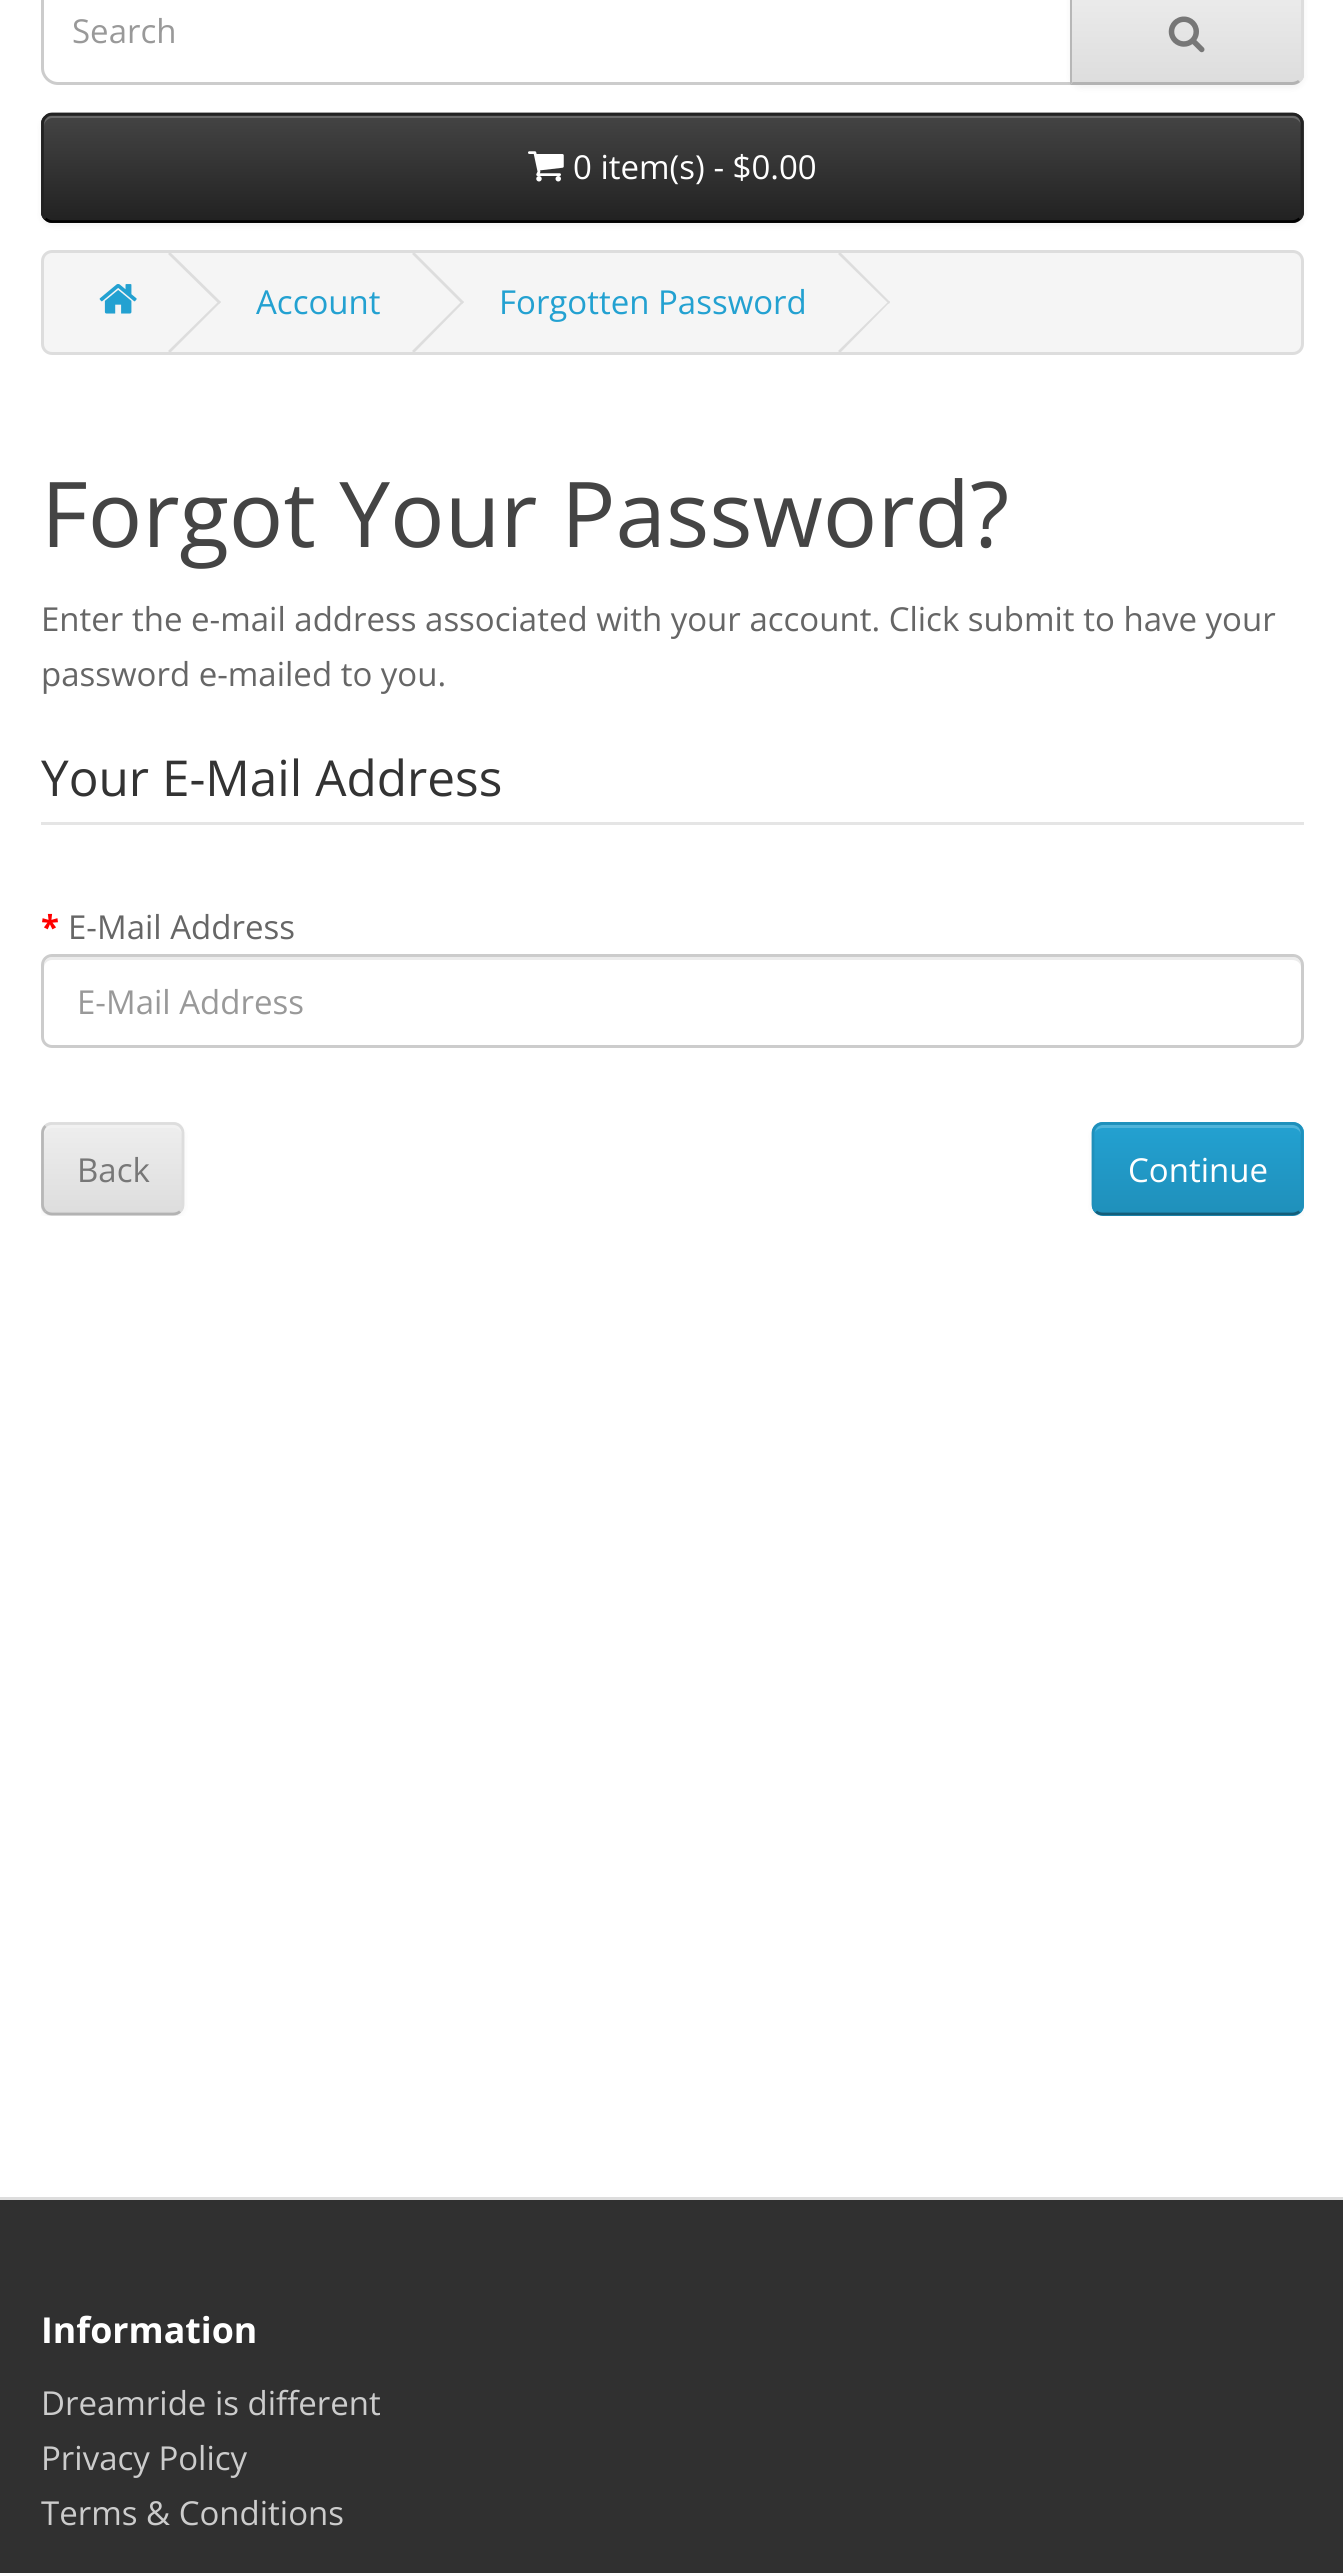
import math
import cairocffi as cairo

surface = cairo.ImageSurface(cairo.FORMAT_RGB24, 1343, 2573)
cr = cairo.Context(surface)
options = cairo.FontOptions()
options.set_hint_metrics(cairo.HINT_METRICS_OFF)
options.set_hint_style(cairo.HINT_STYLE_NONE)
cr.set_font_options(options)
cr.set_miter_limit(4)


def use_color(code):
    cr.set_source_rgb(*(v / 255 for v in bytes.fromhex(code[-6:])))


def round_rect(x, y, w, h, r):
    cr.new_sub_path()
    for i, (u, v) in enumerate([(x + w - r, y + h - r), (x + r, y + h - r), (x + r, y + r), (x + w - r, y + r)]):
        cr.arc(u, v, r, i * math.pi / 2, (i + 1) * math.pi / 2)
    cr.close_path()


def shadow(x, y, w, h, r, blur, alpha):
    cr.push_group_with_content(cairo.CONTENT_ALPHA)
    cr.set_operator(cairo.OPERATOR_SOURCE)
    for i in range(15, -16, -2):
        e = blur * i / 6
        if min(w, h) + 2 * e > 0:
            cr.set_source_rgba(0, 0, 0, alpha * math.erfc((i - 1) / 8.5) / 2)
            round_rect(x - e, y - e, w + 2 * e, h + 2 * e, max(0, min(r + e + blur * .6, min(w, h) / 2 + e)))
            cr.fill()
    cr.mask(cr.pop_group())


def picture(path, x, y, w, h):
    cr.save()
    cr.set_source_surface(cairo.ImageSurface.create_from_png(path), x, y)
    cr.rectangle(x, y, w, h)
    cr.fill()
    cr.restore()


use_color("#ffffff")
cr.paint()
cr.new_path()
cr.move_to(58, -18.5)
cr.line_to(1071.5, -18.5)
cr.line_to(1071.5, 83.5)
cr.line_to(58, 83.5)
cr.curve_to(49.5, 83.5, 42.5, 76.5, 42.5, 68)
cr.line_to(42.5, -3)
cr.curve_to(42.5, -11.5, 49.5, -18.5, 58, -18.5)
cr.close_path()
use_color("#cccccc")
cr.set_line_width(3)
cr.stroke()
cr.select_font_face("Open Sans")
cr.set_font_size(33)
use_color("#999999")
cr.move_to(72, 43)
cr.show_text("Search")
use_color("#000000")
shadow(1070, -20, 234, 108, 11, 3, 0.05)
use_color("#e7e7e7")
cr.new_path()
cr.move_to(1070, -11)
cr.line_to(1293, -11)
cr.curve_to(1299, -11, 1304, -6, 1304, 0)
cr.line_to(1304, 74)
cr.curve_to(1304, 80, 1299, 85, 1293, 85)
cr.line_to(1070, 85)
cr.close_path()
cr.fill()
cr.save()
cr.new_path()
cr.move_to(1070, -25)
cr.line_to(1293, -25)
cr.curve_to(1299, -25, 1304, -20, 1304, -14)
cr.line_to(1304, 74)
cr.curve_to(1304, 80, 1299, 85, 1293, 85)
cr.line_to(1070, 85)
cr.close_path()
cr.clip()
gradient = cairo.LinearGradient(1187, -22, 1187, 83)
gradient.add_color_stop_rgba(0, 0.933, 0.933, 0.933, 1)
gradient.add_color_stop_rgba(1, 0.867, 0.867, 0.867, 1)
cr.set_source(gradient)
cr.rectangle(1072, 0, 232, 83)
cr.fill()
cr.restore()
use_color("#dddddd")
cr.new_path()
cr.move_to(1304, 77)
cr.curve_to(1303, 79, 1302, 81, 1300, 82)
cr.line_to(1298, 80)
cr.curve_to(1300, 79, 1301, 77, 1301, 74)
cr.line_to(1301, -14)
cr.curve_to(1301, -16, 1300, -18, 1298, -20)
cr.line_to(1301, -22)
cr.curve_to(1302, -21, 1303, -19, 1304, -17)
cr.close_path()
cr.fill()
use_color("#b3b3b3")
cr.new_path()
cr.move_to(1300, 82)
cr.curve_to(1298, 84, 1295, 85, 1292, 85)
cr.line_to(1070, 85)
cr.line_to(1073, 82)
cr.line_to(1292, 82)
cr.curve_to(1294, 82, 1297, 81, 1298, 80)
cr.close_path()
cr.fill()
use_color("#b7b7b7")
cr.new_path()
cr.move_to(1072, -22)
cr.line_to(1070, -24)
cr.line_to(1070, 85)
cr.line_to(1073, 82)
cr.line_to(1072, 82)
cr.close_path()
cr.fill()
picture("img1.png", 1168, 16, 37, 37)
use_color("#000000")
shadow(41, 116, 1263, 110, 11, 3, 0.05)
use_color("#363636")
round_rect(41, 113, 1263, 110, 11)
cr.fill()
cr.save()
round_rect(41, 113, 1263, 110, 11)
cr.clip()
gradient = cairo.LinearGradient(672, 115, 672, 220)
gradient.add_color_stop_rgba(0, 0.267, 0.267, 0.267, 1)
gradient.add_color_stop_rgba(1, 0.133, 0.133, 0.133, 1)
cr.set_source(gradient)
cr.rectangle(41, 116, 1263, 104)
cr.fill()
cr.restore()
use_color("#696969")
cr.new_path()
cr.move_to(52, 118)
cr.line_to(1292, 118)
cr.curve_to(1297, 118, 1301, 122, 1301, 126)
cr.curve_to(1301, 121, 1299, 116, 1293, 116)
cr.line_to(52, 116)
cr.curve_to(46, 116, 44, 121, 44, 126)
cr.curve_to(44, 122, 48, 118, 52, 118)
cr.close_path()
cr.fill()
cr.new_path()
cr.move_to(1299.5, 218.5)
cr.curve_to(1297.5, 220.5, 1295, 221.5, 1292.5, 221.5)
cr.line_to(52, 221.5)
cr.curve_to(49.5, 221.5, 47, 220.5, 45.5, 218.5)
use_color("#000000")
cr.set_line_width(2.8)
cr.stroke()
cr.new_path()
cr.move_to(45.5, 218.5)
cr.curve_to(43.5, 217, 42.5, 214.5, 42.5, 212)
cr.line_to(42.5, 124)
cr.curve_to(42.5, 121, 43.5, 118.5, 45.5, 117)
cr.curve_to(47, 115, 49.5, 114, 52, 114)
cr.line_to(1292.5, 114)
cr.curve_to(1295, 114, 1297.5, 115, 1299.5, 117)
cr.curve_to(1301, 118.5, 1302, 121, 1302, 124)
cr.line_to(1302, 212)
cr.curve_to(1302, 214.5, 1301, 217, 1299.5, 218.5)
use_color("#222222")
cr.stroke()
picture("img2.png", 528, 151, 36, 31)
use_color("#ffffff")
cr.move_to(573, 179)
cr.show_text("0 item(s) - $0.00")
use_color("#f5f5f5")
round_rect(42.5, 251.5, 1260, 102, 9.5)
cr.fill_preserve()
use_color("#dddddd")
cr.set_line_width(3)
cr.stroke()
picture("img3.png", 99, 284, 38, 30)
cr.new_path()
cr.move_to(168, 254)
cr.line_to(170, 252)
cr.line_to(221, 302)
cr.line_to(219, 304)
cr.close_path()
cr.fill()
cr.new_path()
cr.move_to(168, 351)
cr.line_to(219, 301)
cr.line_to(221, 302)
cr.line_to(170, 353)
cr.close_path()
cr.fill()
use_color("#23a1d1")
cr.move_to(256, 314)
cr.show_text("Account")
use_color("#dddddd")
cr.new_path()
cr.move_to(412, 254)
cr.line_to(414, 252)
cr.line_to(464, 302)
cr.line_to(462, 304)
cr.close_path()
cr.fill()
cr.new_path()
cr.move_to(412, 351)
cr.line_to(462, 301)
cr.line_to(464, 302)
cr.line_to(414, 353)
cr.close_path()
cr.fill()
use_color("#23a1d1")
cr.move_to(499, 314)
cr.show_text("Forgotten Password")
use_color("#dddddd")
cr.new_path()
cr.move_to(838, 254)
cr.line_to(840, 252)
cr.line_to(890, 302)
cr.line_to(889, 304)
cr.close_path()
cr.fill()
cr.new_path()
cr.move_to(838, 351)
cr.line_to(889, 301)
cr.line_to(890, 302)
cr.line_to(840, 353)
cr.close_path()
cr.fill()
cr.set_font_size(90.75)
use_color("#444444")
cr.move_to(41, 547)
cr.show_text("Forgot Your Password?")
cr.set_font_size(33)
use_color("#666666")
cr.move_to(41, 631)
cr.show_text("Enter the e-mail address associated with your account. Click submit to have your")
cr.move_to(41, 686)
cr.show_text("password e-mailed to you.")
use_color("#e5e5e5")
cr.rectangle(41, 822, 1263, 3)
cr.fill()
cr.set_font_size(49.5)
use_color("#333333")
cr.move_to(41, 796)
cr.show_text("Your E-Mail Address")
cr.select_font_face("Open Sans", cairo.FONT_SLANT_NORMAL, cairo.FONT_WEIGHT_BOLD)
cr.set_font_size(33)
use_color("#ff0000")
cr.move_to(41, 939)
cr.show_text("*")
cr.select_font_face("Open Sans")
use_color("#666666")
cr.move_to(68, 939)
cr.show_text("E-Mail Address")
use_color("#ececec")
cr.new_path()
cr.move_to(52, 960)
cr.line_to(1292, 960)
cr.curve_to(1297, 960, 1301, 963, 1301, 968)
cr.line_to(1301, 965)
cr.curve_to(1301, 961, 1297, 957, 1293, 957)
cr.line_to(52, 957)
cr.curve_to(48, 957, 44, 961, 44, 965)
cr.line_to(44, 968)
cr.curve_to(44, 963, 48, 960, 52, 960)
cr.close_path()
cr.fill()
round_rect(42.5, 955.5, 1260, 91, 9.5)
use_color("#cccccc")
cr.stroke()
use_color("#999999")
cr.move_to(77, 1014)
cr.show_text("E-Mail Address")
cr.save()
cr.rectangle(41, 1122, 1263, 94)
cr.clip()
use_color("#000000")
shadow(41, 1125, 143, 93, 11, 3, 0.05)
cr.restore()
use_color("#e7e7e7")
round_rect(41, 1122, 143, 94, 11)
cr.fill()
cr.save()
round_rect(41, 1122, 143, 94, 11)
cr.clip()
gradient = cairo.LinearGradient(113, 1125, 113, 1213)
gradient.add_color_stop_rgba(0, 0.933, 0.933, 0.933, 1)
gradient.add_color_stop_rgba(1, 0.867, 0.867, 0.867, 1)
cr.set_source(gradient)
cr.rectangle(41, 1125, 143, 88)
cr.fill()
cr.restore()
use_color("#f1f1f1")
cr.new_path()
cr.move_to(52, 1128)
cr.line_to(173, 1128)
cr.curve_to(178, 1128, 182, 1131, 182, 1136)
cr.line_to(182, 1133)
cr.curve_to(182, 1129, 178, 1125, 174, 1125)
cr.line_to(52, 1125)
cr.curve_to(48, 1125, 44, 1129, 44, 1133)
cr.line_to(44, 1136)
cr.curve_to(44, 1131, 48, 1128, 52, 1128)
cr.close_path()
cr.fill()
cr.new_path()
cr.move_to(45.5, 1126)
cr.curve_to(47, 1124.5, 49.5, 1123.5, 52, 1123.5)
cr.line_to(173, 1123.5)
cr.curve_to(176, 1123.5, 178.5, 1124.5, 180, 1126)
cr.curve_to(182, 1128, 183, 1130.5, 183, 1133)
cr.line_to(183, 1204.5)
cr.curve_to(183, 1207, 182, 1209.5, 180, 1211.5)
use_color("#dddddd")
cr.set_line_width(2.8)
cr.stroke()
cr.new_path()
cr.move_to(180, 1211.5)
cr.curve_to(178.5, 1213, 176, 1214, 173, 1214)
cr.line_to(52, 1214)
cr.curve_to(49.5, 1214, 47, 1213, 45.5, 1211.5)
use_color("#b3b3b3")
cr.stroke()
cr.new_path()
cr.move_to(45.5, 1211.5)
cr.curve_to(43.5, 1209.5, 42.5, 1207, 42.5, 1204.5)
cr.line_to(42.5, 1133)
cr.curve_to(42.5, 1130.5, 43.5, 1128, 45.5, 1126)
use_color("#b7b7b7")
cr.stroke()
use_color("#777777")
cr.move_to(77, 1182)
cr.show_text("Back")
cr.save()
cr.rectangle(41, 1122, 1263, 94)
cr.clip()
use_color("#000000")
shadow(1092, 1125, 212, 93, 11, 3, 0.05)
cr.restore()
use_color("#229ac8")
round_rect(1092, 1122, 212, 94, 11)
cr.fill()
cr.save()
round_rect(1092, 1122, 212, 94, 11)
cr.clip()
gradient = cairo.LinearGradient(1198, 1125, 1198, 1213)
gradient.add_color_stop_rgba(0, 0.137, 0.631, 0.82, 1)
gradient.add_color_stop_rgba(1, 0.122, 0.565, 0.733, 1)
cr.set_source(gradient)
cr.rectangle(1092, 1125, 212, 88)
cr.fill()
cr.restore()
use_color("#4fb4da")
cr.new_path()
cr.move_to(1103, 1128)
cr.line_to(1292, 1128)
cr.curve_to(1297, 1128, 1301, 1131, 1301, 1136)
cr.line_to(1301, 1133)
cr.curve_to(1301, 1129, 1297, 1125, 1293, 1125)
cr.line_to(1103, 1125)
cr.curve_to(1099, 1125, 1096, 1128, 1095, 1132)
cr.curve_to(1097, 1129, 1100, 1128, 1103, 1128)
cr.close_path()
cr.fill()
cr.new_path()
cr.move_to(1299.5, 1211.5)
cr.curve_to(1297.5, 1213, 1295, 1214, 1292.5, 1214)
cr.line_to(1103, 1214)
cr.curve_to(1100, 1214, 1097.5, 1213, 1096, 1211.5)
use_color("#145e7a")
cr.stroke()
cr.new_path()
cr.move_to(1096, 1211.5)
cr.curve_to(1094, 1209.5, 1093, 1207, 1093, 1204.5)
cr.line_to(1093, 1133)
cr.curve_to(1093, 1130.5, 1094, 1128, 1096, 1126)
cr.curve_to(1097.5, 1124.5, 1100, 1123.5, 1103, 1123.5)
cr.line_to(1292.5, 1123.5)
cr.curve_to(1295, 1123.5, 1297.5, 1124.5, 1299.5, 1126)
cr.curve_to(1301, 1128, 1302, 1130.5, 1302, 1133)
cr.line_to(1302, 1204.5)
cr.curve_to(1302, 1207, 1301, 1209.5, 1299.5, 1211.5)
use_color("#1f90bb")
cr.stroke()
use_color("#ffffff")
cr.move_to(1128, 1182)
cr.show_text("Continue")
use_color("#303030")
cr.rectangle(0, 2200, 1343, 373)
cr.fill()
use_color("#dddddd")
cr.rectangle(0, 2197, 1343, 3)
cr.fill()
cr.select_font_face("Open Sans", cairo.FONT_SLANT_NORMAL, cairo.FONT_WEIGHT_BOLD)
cr.set_font_size(35.75)
use_color("#ffffff")
cr.move_to(41, 2343)
cr.show_text("Information")
cr.select_font_face("Open Sans")
cr.set_font_size(33)
use_color("#cccccc")
cr.move_to(41, 2415)
cr.show_text("Dreamride is different")
cr.move_to(41, 2470)
cr.show_text("Privacy Policy")
cr.move_to(41, 2525)
cr.show_text("Terms & Conditions")
surface.write_to_png("result.png")
